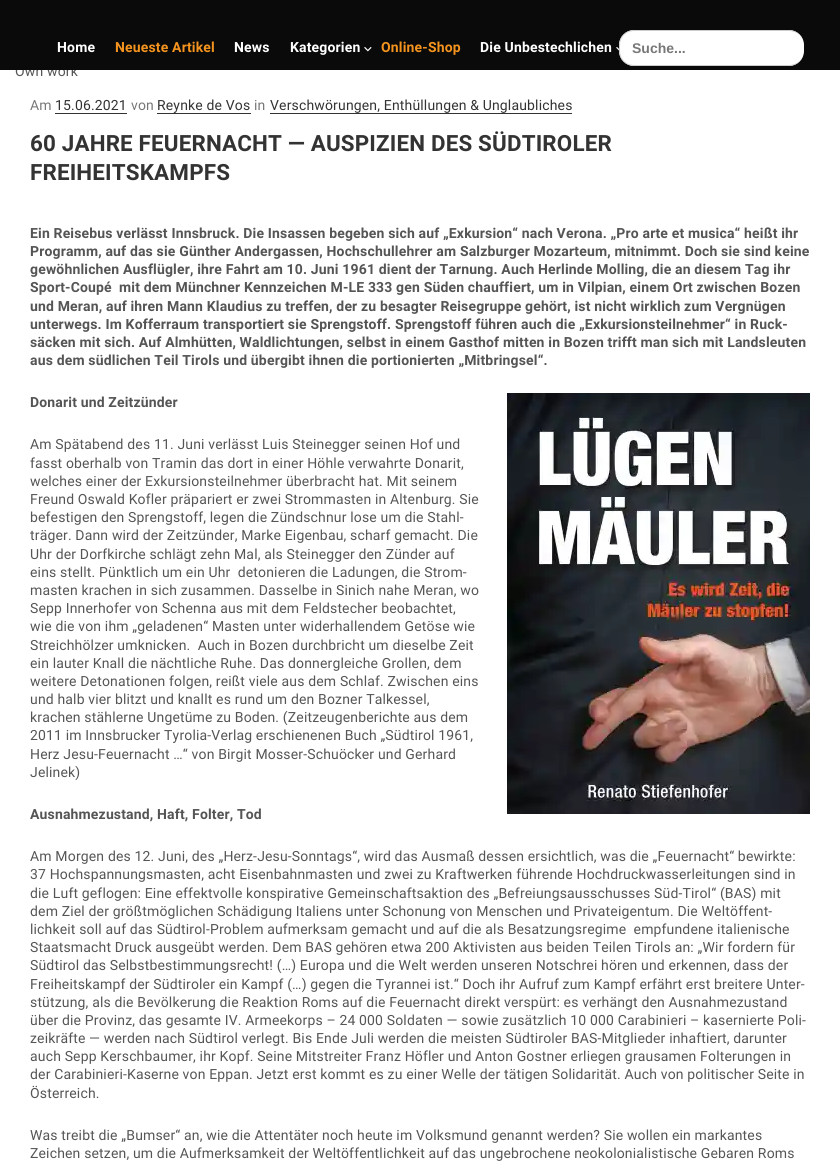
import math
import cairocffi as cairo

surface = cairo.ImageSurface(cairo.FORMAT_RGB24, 840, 1171)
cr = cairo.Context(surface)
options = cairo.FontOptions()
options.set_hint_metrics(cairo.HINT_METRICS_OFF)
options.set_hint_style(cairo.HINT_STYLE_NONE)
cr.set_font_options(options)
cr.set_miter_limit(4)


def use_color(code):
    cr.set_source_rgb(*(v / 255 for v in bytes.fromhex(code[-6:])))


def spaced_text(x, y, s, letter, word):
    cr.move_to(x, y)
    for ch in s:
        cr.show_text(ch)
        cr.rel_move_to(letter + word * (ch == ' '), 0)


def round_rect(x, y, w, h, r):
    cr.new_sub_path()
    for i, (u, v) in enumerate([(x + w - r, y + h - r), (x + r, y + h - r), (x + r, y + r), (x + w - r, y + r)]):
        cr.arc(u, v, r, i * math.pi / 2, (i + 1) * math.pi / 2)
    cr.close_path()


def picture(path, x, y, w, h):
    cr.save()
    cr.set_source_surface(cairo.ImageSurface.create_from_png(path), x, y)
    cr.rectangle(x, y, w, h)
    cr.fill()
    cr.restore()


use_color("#ffffff")
cr.paint()
cr.select_font_face("Roboto")
cr.set_font_size(14)
use_color("#555555")
spaced_text(15, 76, "Own work", 0.16, 0)
use_color("#0a0a0a")
cr.rectangle(0, 0, 840, 70)
cr.fill()
cr.select_font_face("Roboto", cairo.FONT_SLANT_NORMAL, cairo.FONT_WEIGHT_BOLD)
use_color("#ffffff")
spaced_text(57, 52, "Home", 0.16, 0)
use_color("#f4931e")
spaced_text(115, 52, "Neueste Artikel", 0.16, 0)
use_color("#ffffff")
spaced_text(234, 52, "News", 0.16, 0)
spaced_text(290, 52, "Kategorien", 0.16, 0)
picture("img1.png", 364, 46, 8, 6)
use_color("#f4931e")
spaced_text(381, 52, "Online-Shop", 0.16, 0)
use_color("#ffffff")
spaced_text(480, 52, "Die Unbestechlichen", 0.16, 0)
picture("img2.png", 616, 47, 4, 5)
round_rect(619, 30, 185, 36, 15)
cr.fill()
use_color("#cccccc")
cr.set_fill_rule(cairo.FILL_RULE_EVEN_ODD)
cr.new_path()
cr.move_to(634, 30)
cr.line_to(789, 30)
cr.curve_to(797, 30, 804, 37, 804, 45)
cr.line_to(804, 51)
cr.curve_to(804, 59, 797, 66, 789, 66)
cr.line_to(634, 66)
cr.curve_to(626, 66, 619, 59, 619, 51)
cr.line_to(619, 45)
cr.curve_to(619, 37, 626, 30, 634, 30)
cr.close_path()
cr.move_to(634, 31)
cr.line_to(789, 31)
cr.curve_to(797, 31, 804, 37, 804, 45)
cr.line_to(804, 51)
cr.curve_to(804, 59, 797, 65, 789, 65)
cr.line_to(634, 65)
cr.curve_to(626, 65, 620, 59, 620, 51)
cr.line_to(620, 45)
cr.curve_to(620, 37, 626, 31, 634, 31)
cr.close_path()
cr.fill()
cr.select_font_face("Liberation Sans", cairo.FONT_SLANT_NORMAL, cairo.FONT_WEIGHT_BOLD)
use_color("#777777")
cr.move_to(632, 53)
cr.show_text("Suche...")
cr.select_font_face("Roboto")
spaced_text(30, 110, "Am", 0.16, 0)
use_color("#333333")
spaced_text(55, 110, "15.06.2021", 0.16, 0)
cr.rectangle(55, 113, 72, 1)
cr.fill()
use_color("#777777")
spaced_text(131, 110, "von", 0.16, 0)
use_color("#333333")
spaced_text(157, 110, "Reynke de Vos", 0.16, 0)
cr.rectangle(157, 113, 94, 1)
cr.fill()
use_color("#777777")
spaced_text(254, 110, "in", 0.16, 0)
use_color("#333333")
spaced_text(270, 110, "Verschwörungen, Enthüllungen & Unglaubliches", 0.16, 0)
cr.rectangle(270, 113, 302, 1)
cr.fill()
cr.select_font_face("Roboto", cairo.FONT_SLANT_NORMAL, cairo.FONT_WEIGHT_BOLD)
cr.set_font_size(22.4)
spaced_text(30, 151, "60 JAHRE FEUERNACHT — AUSPIZIEN DES SÜDTIROLER", 0.16, 0)
spaced_text(30, 180, "FREIHEITSKAMPFS", 0.16, 0)
cr.set_font_size(14)
use_color("#555555")
spaced_text(30, 238, "Ein Reisebus verlässt Innsbruck. Die Insassen begeben sich auf „Exkursion“ nach Verona. „Pro arte et musica“ heißt ihr", 0.16, 0)
spaced_text(30, 256, "Programm, auf das sie Günther Andergassen, Hochschullehrer am Salzburger Mozarteum, mitnimmt. Doch sie sind keine", 0.16, 0)
spaced_text(30, 274, "gewöhnlichen Ausflügler, ihre Fahrt am 10. Juni 1961 dient der Tarnung. Auch Herlinde Molling, die an diesem Tag ihr", 0.16, 0)
spaced_text(30, 292, "Sport-Coupé  mit dem Münchner Kennzeichen M‑LE 333 gen Süden chauffiert, um in Vilpian, einem Ort zwischen Bozen", 0.16, 0)
spaced_text(30, 311, "und Meran, auf ihren Mann Klaudius zu treffen, der zu besagter Reisegruppe gehört, ist nicht wirklich zum Vergnügen", 0.16, 0)
spaced_text(30, 329, "unterwegs. Im Kofferraum transportiert sie Sprengstoff. Sprengstoff führen auch die „Exkursionsteilnehmer“ in Ruck-", 0.16, 0)
spaced_text(30, 347, "säcken mit sich. Auf Almhütten, Waldlichtungen, selbst in einem Gasthof mitten in Bozen trifft man sich mit Landsleuten", 0.16, 0)
spaced_text(30, 365, "aus dem südlichen Teil Tirols und übergibt ihnen die portionierten „Mitbringsel“.", 0.16, 0)
spaced_text(30, 407, "Donarit und Zeitzünder", 0.16, 0)
picture("img3.png", 507, 393, 303, 421)
cr.select_font_face("Roboto")
spaced_text(30, 449, "Am Spätabend des 11. Juni verlässt Luis Steinegger seinen Hof und", 0.16, 0)
spaced_text(30, 468, "fasst oberhalb von Tramin das dort in einer Höhle verwahrte Donarit,", 0.16, 0)
spaced_text(30, 486, "welches einer der Exkursionsteilnehmer überbracht hat. Mit seinem", 0.16, 0)
spaced_text(30, 504, "Freund Oswald Kofler präpariert er zwei Strommasten in Altenburg. Sie", 0.16, 0)
spaced_text(30, 522, "befestigen den Sprengstoff, legen die Zündschnur lose um die Stahl-", 0.16, 0)
spaced_text(30, 540, "träger. Dann wird der Zeitzünder, Marke Eigenbau, scharf gemacht. Die", 0.16, 0)
spaced_text(30, 559, "Uhr der Dorfkirche schlägt zehn Mal, als Steinegger den Zünder auf", 0.16, 0)
spaced_text(30, 577, "eins stellt. Pünktlich um ein Uhr  detonieren die Ladungen, die Strom-", 0.16, 0)
spaced_text(30, 595, "masten krachen in sich zusammen. Dasselbe in Sinich nahe Meran, wo", 0.16, 0)
spaced_text(30, 613, "Sepp Innerhofer von Schenna aus mit dem Feldstecher beobachtet,", 0.16, 0)
spaced_text(30, 631, "wie die von ihm „geladenen“ Masten unter widerhallendem Getöse wie", 0.16, 0)
spaced_text(30, 650, "Streichhölzer umknicken.  Auch in Bozen durchbricht um dieselbe Zeit", 0.16, 0)
spaced_text(30, 668, "ein lauter Knall die nächtliche Ruhe. Das donnergleiche Grollen, dem", 0.16, 0)
spaced_text(30, 686, "weitere Detonationen folgen, reißt viele aus dem Schlaf. Zwischen eins", 0.16, 0)
spaced_text(30, 704, "und halb vier blitzt und knallt es rund um den Bozner Talkessel,", 0.16, 0)
spaced_text(30, 722, "krachen stählerne Ungetüme zu Boden. (Zeitzeugenberichte aus dem", 0.16, 0)
spaced_text(30, 740, "2011 im Innsbrucker Tyrolia-Verlag erschienenen Buch „Südtirol 1961,", 0.16, 0)
spaced_text(30, 759, "Herz Jesu-Feuernacht …“ von Birgit Mosser-Schuöcker und Gerhard", 0.16, 0)
spaced_text(30, 777, "Jelinek)", 0.16, 0)
cr.select_font_face("Roboto", cairo.FONT_SLANT_NORMAL, cairo.FONT_WEIGHT_BOLD)
spaced_text(30, 819, "Ausnahmezustand, Haft, Folter, Tod", 0.16, 0)
cr.select_font_face("Roboto")
spaced_text(30, 861, "Am Morgen des 12. Juni, des „Herz-Jesu-Sonntags“, wird das Ausmaß dessen ersichtlich, was die „Feuernacht“ bewirkte:", 0.16, 0)
spaced_text(30, 879, "37 Hochspannungsmasten, acht Eisenbahnmasten und zwei zu Kraftwerken führende Hochdruckwasserleitungen sind in", 0.16, 0)
spaced_text(30, 898, "die Luft geflogen: Eine effektvolle konspirative Gemeinschaftsaktion des „Befreiungsausschusses Süd-Tirol“ (BAS) mit", 0.16, 0)
spaced_text(30, 916, "dem Ziel der größtmöglichen Schädigung Italiens unter Schonung von Menschen und Privateigentum. Die Weltöffent-", 0.16, 0)
spaced_text(30, 934, "lichkeit soll auf das Südtirol-Problem aufmerksam gemacht und auf die als Besatzungsregime  empfundene italienische", 0.16, 0)
spaced_text(30, 952, "Staatsmacht Druck ausgeübt werden. Dem BAS gehören etwa 200 Aktivisten aus beiden Teilen Tirols an: „Wir fordern für", 0.16, 0)
spaced_text(30, 970, "Südtirol das Selbstbestimmungsrecht! (…) Europa und die Welt werden unseren Notschrei hören und erkennen, dass der", 0.16, 0)
spaced_text(30, 989, "Freiheitskampf der Südtiroler ein Kampf (…) gegen die Tyrannei ist.“ Doch ihr Aufruf zum Kampf erfährt erst breitere Unter-", 0.16, 0)
spaced_text(30, 1007, "stützung, als die Bevölkerung die Reaktion Roms auf die Feuernacht direkt verspürt: es verhängt den Ausnahmezustand", 0.16, 0)
spaced_text(30, 1025, "über die Provinz, das gesamte IV. Armeekorps – 24 000 Soldaten — sowie zusätzlich 10 000 Carabinieri – kasernierte Poli-", 0.16, 0)
spaced_text(30, 1043, "zeikräfte — werden nach Südtirol verlegt. Bis Ende Juli werden die meisten Südtiroler BAS-Mitglieder inhaftiert, darunter", 0.16, 0)
spaced_text(30, 1061, "auch Sepp Kerschbaumer, ihr Kopf. Seine Mitstreiter Franz Höfler und Anton Gostner erliegen grausamen Folterungen in", 0.16, 0)
spaced_text(30, 1079, "der Carabinieri-Kaserne von Eppan. Jetzt erst kommt es zu einer Welle der tätigen Solidarität. Auch von politischer Seite in", 0.16, 0)
spaced_text(30, 1098, "Österreich.", 0.16, 0)
spaced_text(30, 1140, "Was treibt die „Bumser“ an, wie die Attentäter noch heute im Volksmund genannt werden? Sie wollen ein markantes", 0.16, 0)
spaced_text(30, 1158, "Zeichen setzen, um die Aufmerksamkeit der Weltöffentlichkeit auf das ungebrochene neokolonialistische Gebaren Roms", 0.16, 0)
surface.write_to_png("result.png")
